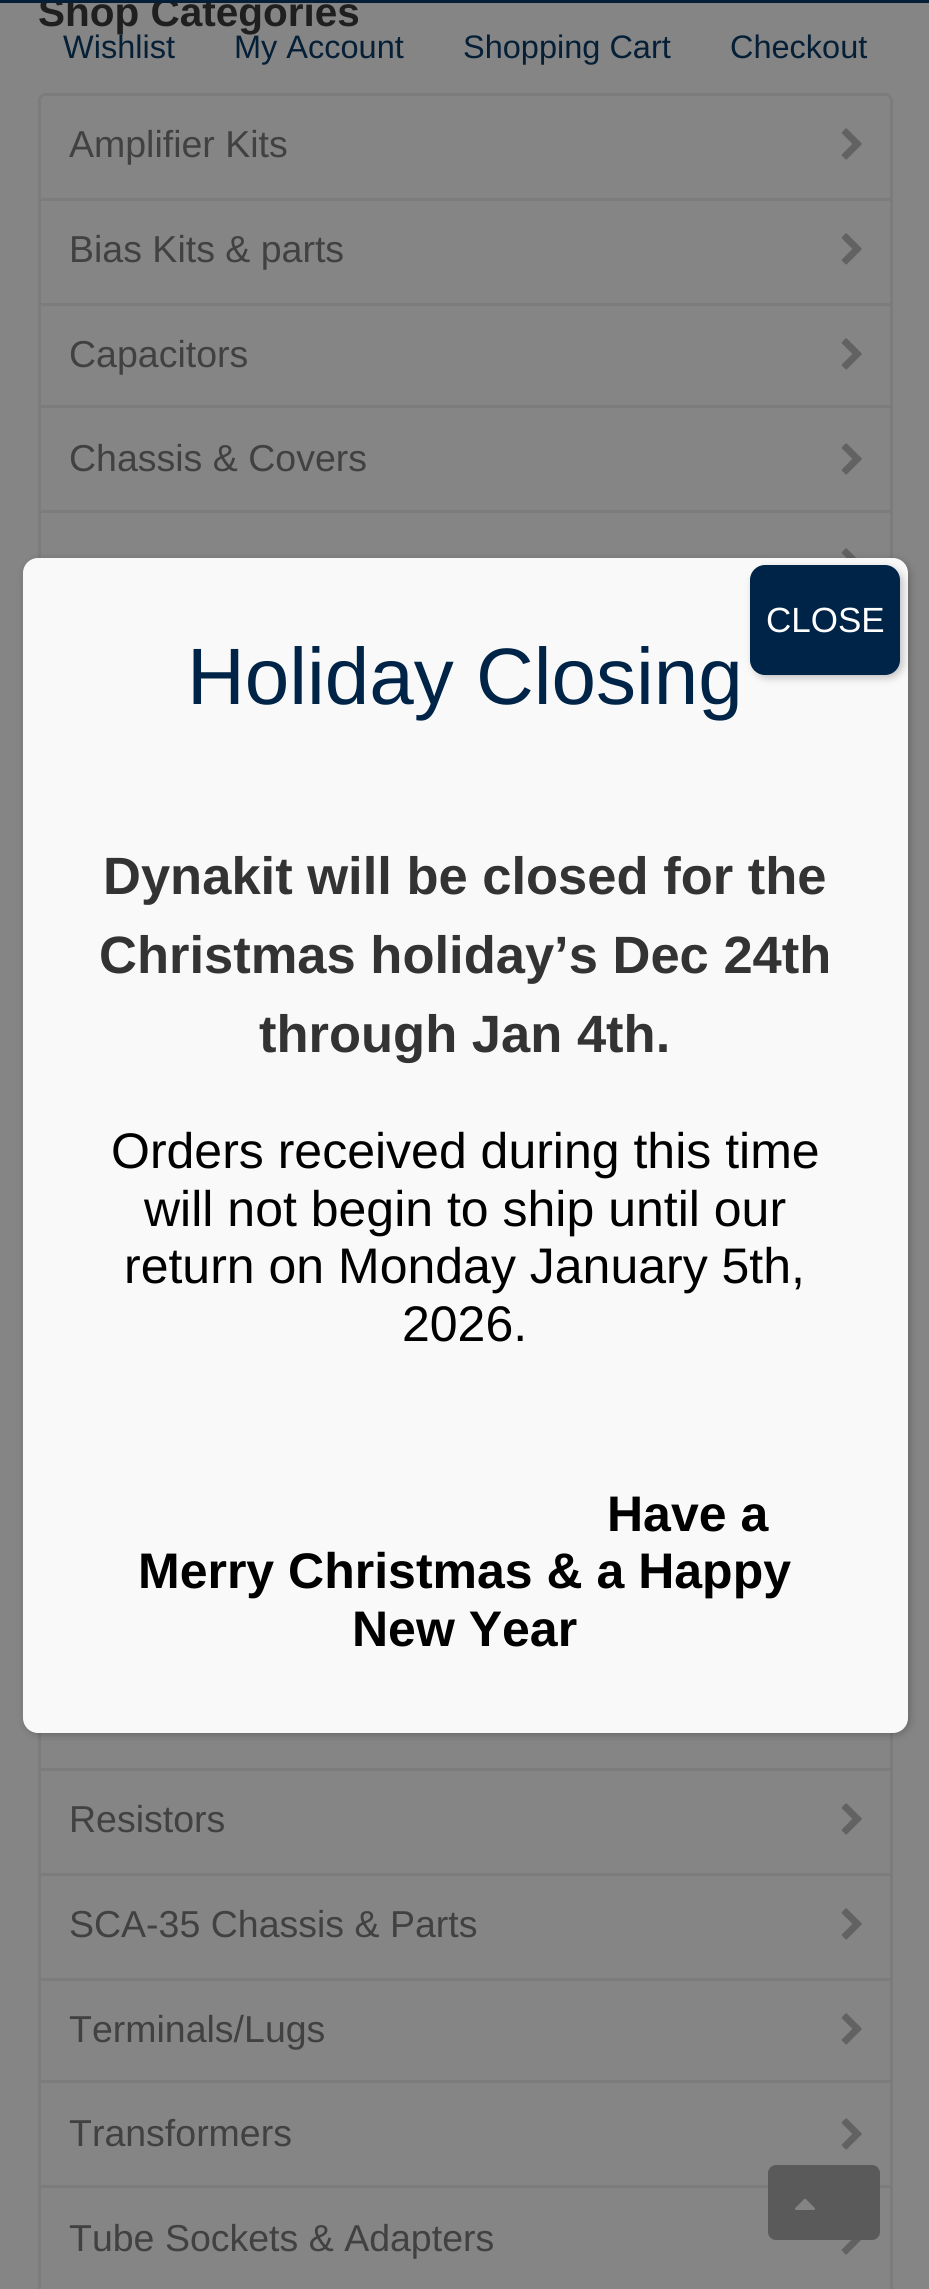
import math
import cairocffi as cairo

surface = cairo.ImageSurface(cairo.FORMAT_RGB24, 929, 2289)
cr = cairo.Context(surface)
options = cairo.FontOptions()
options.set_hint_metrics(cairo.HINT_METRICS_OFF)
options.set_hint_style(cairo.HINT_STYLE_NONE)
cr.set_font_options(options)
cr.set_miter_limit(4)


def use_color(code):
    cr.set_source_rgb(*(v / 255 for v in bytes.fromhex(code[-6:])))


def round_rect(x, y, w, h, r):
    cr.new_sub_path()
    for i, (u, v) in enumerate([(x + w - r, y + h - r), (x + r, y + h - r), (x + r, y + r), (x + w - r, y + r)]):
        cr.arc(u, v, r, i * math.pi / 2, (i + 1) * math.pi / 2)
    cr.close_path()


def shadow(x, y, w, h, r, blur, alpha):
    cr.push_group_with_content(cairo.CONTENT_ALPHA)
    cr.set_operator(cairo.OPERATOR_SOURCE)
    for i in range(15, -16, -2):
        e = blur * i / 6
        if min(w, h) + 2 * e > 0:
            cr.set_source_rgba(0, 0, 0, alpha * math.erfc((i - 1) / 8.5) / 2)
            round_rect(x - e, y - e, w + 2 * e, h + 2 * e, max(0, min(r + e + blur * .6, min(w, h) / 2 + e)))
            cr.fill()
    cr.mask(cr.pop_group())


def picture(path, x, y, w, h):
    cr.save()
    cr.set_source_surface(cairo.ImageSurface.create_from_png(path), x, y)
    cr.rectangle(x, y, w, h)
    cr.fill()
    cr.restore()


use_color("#858585")
cr.paint()
cr.select_font_face("Liberation Sans", cairo.FONT_SLANT_NORMAL, cairo.FONT_WEIGHT_BOLD)
cr.set_font_size(40.5)
use_color("#1f1f1f")
cr.move_to(38, 26)
cr.show_text("Shop Categories")
round_rect(39.5, 94.5, 852, 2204, 6.5)
use_color("#7c7c7c")
cr.set_line_width(3)
cr.stroke()
cr.rectangle(40, 198, 850, 3)
cr.fill()
cr.select_font_face("Liberation Sans")
cr.set_font_size(37.5)
use_color("#414141")
cr.move_to(69, 157)
cr.show_text("Amplifier Kits")
picture("img1.png", 841, 128, 21, 32)
use_color("#7c7c7c")
cr.rectangle(40, 303, 850, 3)
cr.fill()
use_color("#414141")
cr.move_to(69, 262)
cr.show_text("Bias Kits & parts")
picture("img1.png", 841, 233, 21, 32)
use_color("#7c7c7c")
cr.rectangle(40, 405, 850, 3)
cr.fill()
use_color("#414141")
cr.move_to(69, 367)
cr.show_text("Capacitors")
picture("img1.png", 841, 338, 21, 32)
use_color("#7c7c7c")
cr.rectangle(40, 510, 850, 3)
cr.fill()
use_color("#414141")
cr.move_to(69, 471)
cr.show_text("Chassis & Covers")
picture("img1.png", 841, 443, 21, 32)
picture("img2.png", 841, 548, 16, 10)
use_color("#7c7c7c")
cr.rectangle(40, 1768, 850, 3)
cr.fill()
cr.rectangle(40, 1873, 850, 3)
cr.fill()
use_color("#414141")
cr.move_to(69, 1832)
cr.show_text("Resistors")
picture("img1.png", 841, 1803, 21, 32)
use_color("#7c7c7c")
cr.rectangle(40, 1978, 850, 3)
cr.fill()
use_color("#414141")
cr.move_to(69, 1937)
cr.show_text("SCA-35 Chassis & Parts")
picture("img1.png", 841, 1908, 21, 32)
use_color("#7c7c7c")
cr.rectangle(40, 2080, 850, 3)
cr.fill()
use_color("#414141")
cr.move_to(69, 2042)
cr.show_text("Terminals/Lugs")
picture("img1.png", 841, 2013, 21, 32)
use_color("#7c7c7c")
cr.rectangle(40, 2185, 850, 3)
cr.fill()
use_color("#414141")
cr.move_to(69, 2146)
cr.show_text("Transformers")
picture("img1.png", 841, 2118, 21, 32)
cr.move_to(69, 2251)
cr.show_text("Tube Sockets & Adapters")
picture("img3.png", 841, 2240, 20, 15)
use_color("#051f38")
cr.rectangle(0, 0, 929, 3)
cr.fill()
cr.set_font_size(32.5)
use_color("#051f37")
cr.move_to(63, 58)
cr.show_text("Wishlist")
cr.move_to(234, 58)
cr.show_text("My Account")
cr.move_to(463, 58)
cr.show_text("Shopping Cart")
cr.move_to(730, 58)
cr.show_text("Checkout")
use_color("#020202")
shadow(25, 560, 885, 1175, 15, 4, 0.23)
use_color("#f9f9f9")
round_rect(23, 558, 885, 1175, 15)
cr.fill()
use_color("#020202")
shadow(753, 568, 150, 110, 15, 4, 0.23)
use_color("#002447")
round_rect(750, 565, 150, 110, 15)
cr.fill()
cr.set_font_size(35)
use_color("#ffffff")
cr.move_to(766, 632)
cr.show_text("CLOSE")
cr.set_font_size(80)
use_color("#002447")
cr.move_to(187, 704)
cr.show_text("Holiday Closing")
cr.select_font_face("Liberation Sans", cairo.FONT_SLANT_NORMAL, cairo.FONT_WEIGHT_BOLD)
cr.set_font_size(52.5)
use_color("#333333")
cr.move_to(103, 894)
cr.show_text("Dynakit will be closed for the")
cr.move_to(99, 973)
cr.show_text("Christmas holiday’s Dec 24th")
cr.move_to(259, 1052)
cr.show_text("through Jan 4th.")
cr.select_font_face("Liberation Sans")
cr.set_font_size(50)
use_color("#000000")
cr.move_to(111, 1168)
cr.show_text("Orders received during this time")
cr.move_to(144, 1226)
cr.show_text("will not begin to ship until our")
cr.move_to(124, 1283)
cr.show_text("return on Monday January 5th,")
cr.move_to(402, 1341)
cr.show_text("2026.")
cr.select_font_face("Liberation Sans", cairo.FONT_SLANT_NORMAL, cairo.FONT_WEIGHT_BOLD)
cr.move_to(607, 1531)
cr.show_text("Have a")
cr.move_to(138, 1588)
cr.show_text("Merry Christmas & a Happy")
cr.move_to(352, 1646)
cr.show_text("New Year")
use_color("#5a5a5a")
round_rect(772, 2169, 104, 67, 4)
cr.fill_preserve()
cr.set_line_width(8)
cr.stroke()
picture("img4.png", 795, 2198, 20, 12)
surface.write_to_png("result.png")
